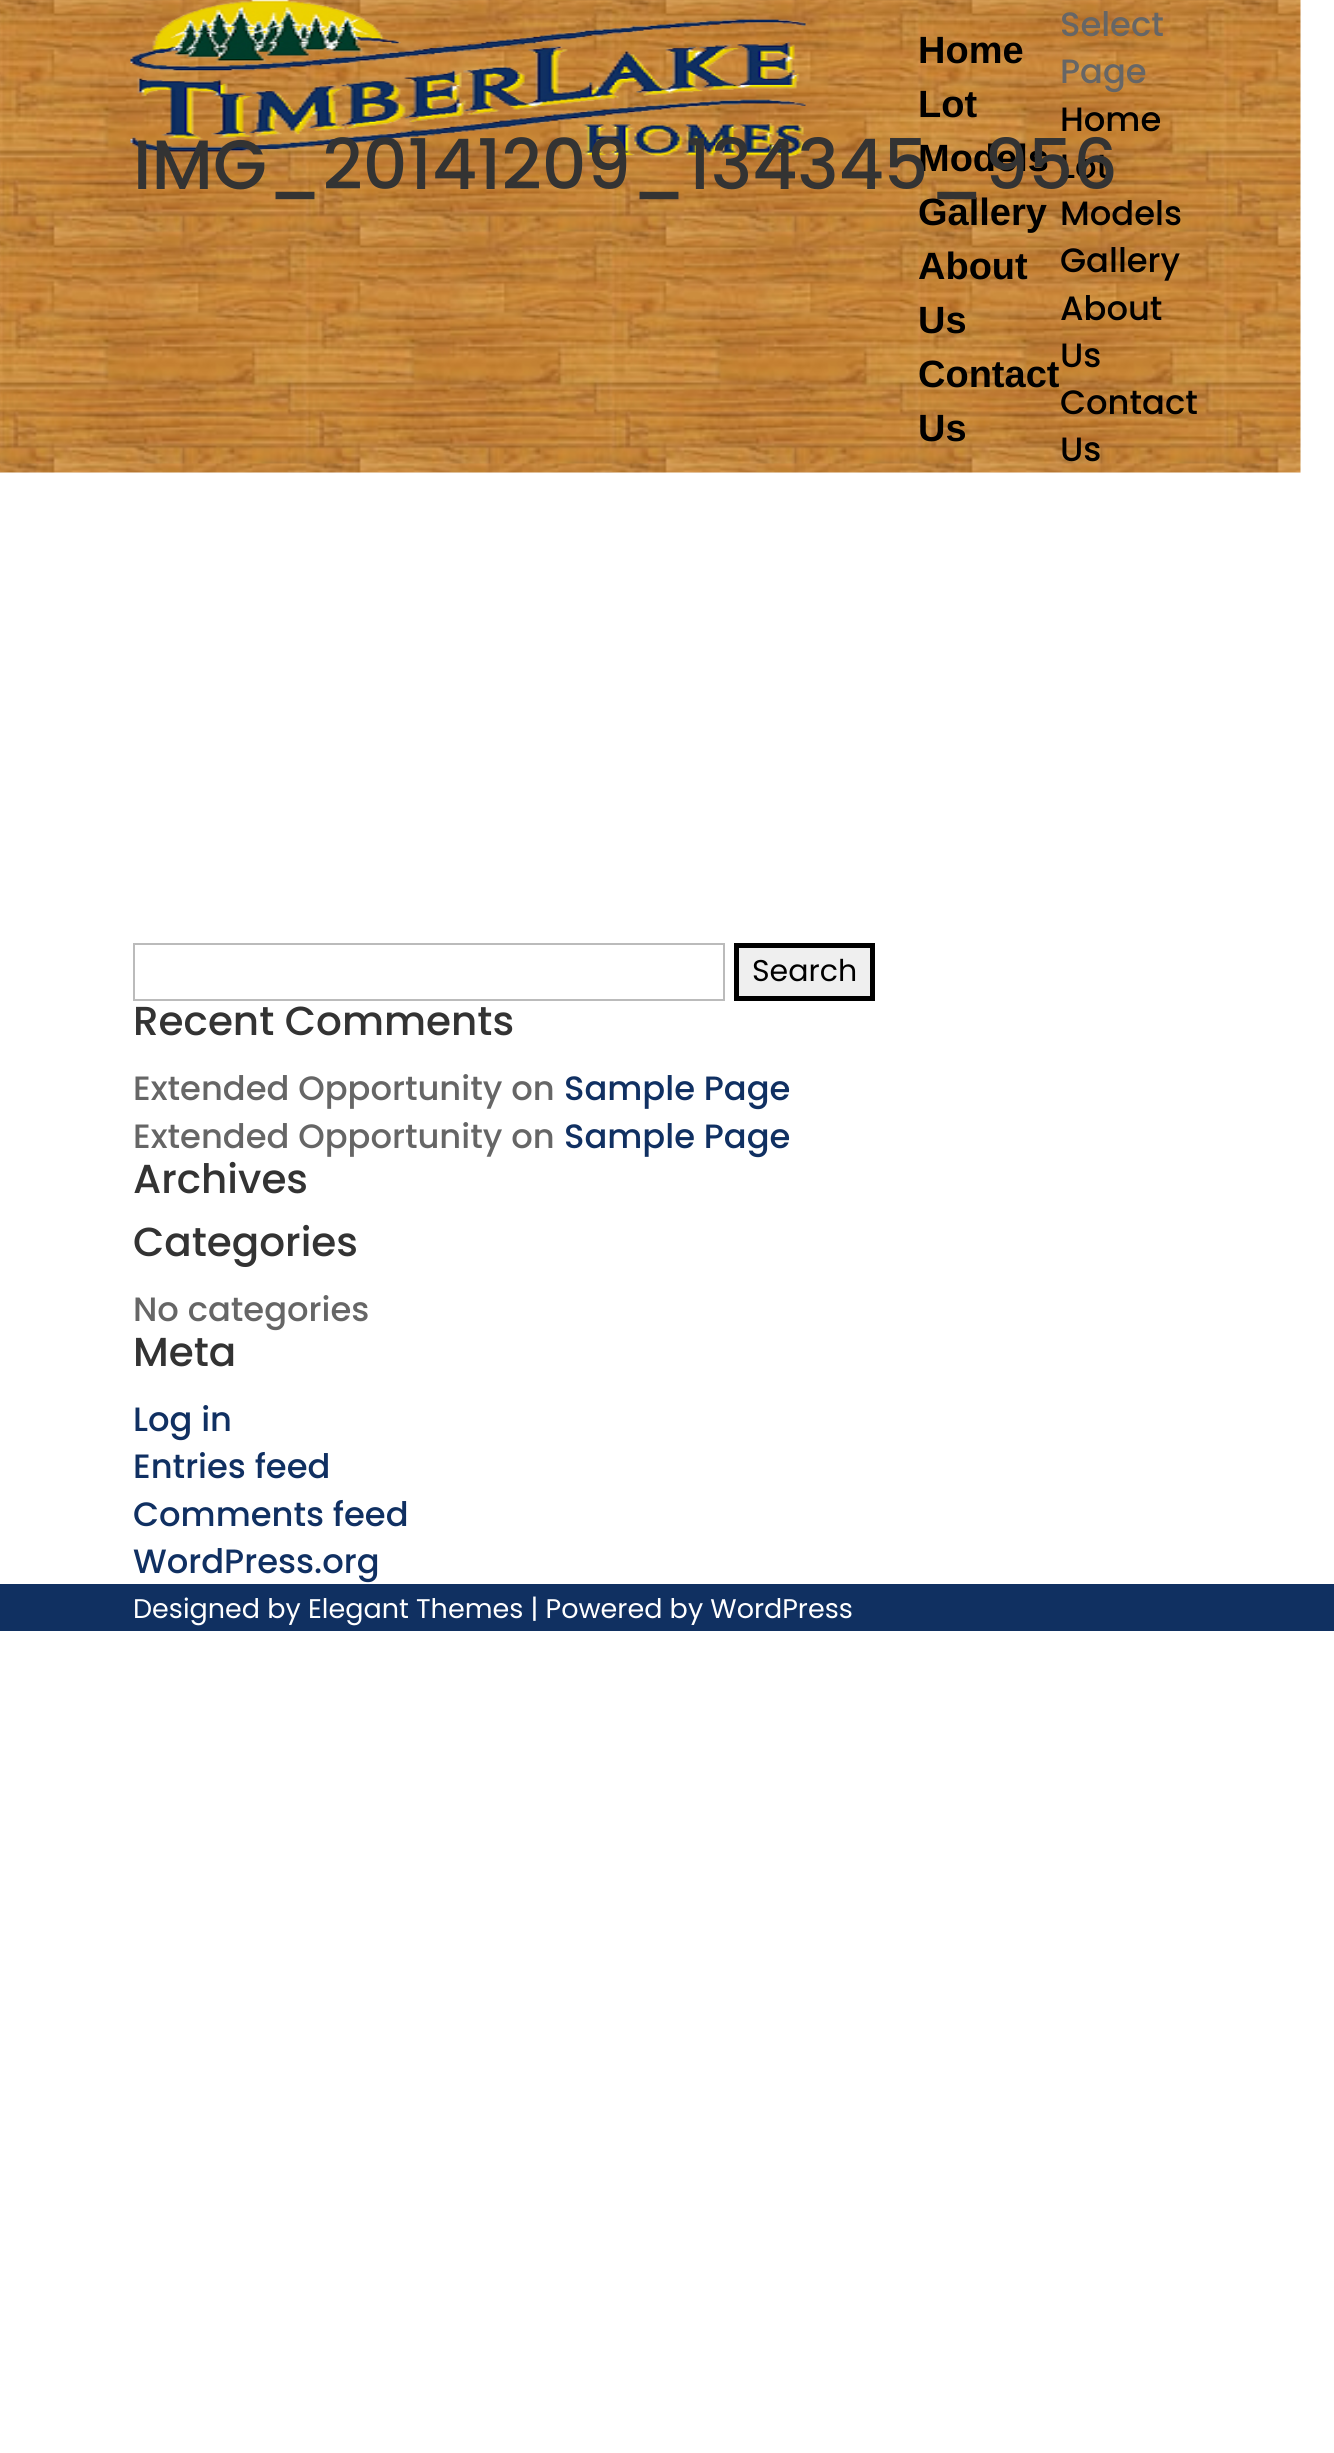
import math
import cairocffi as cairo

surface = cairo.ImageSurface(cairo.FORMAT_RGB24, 1334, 2453)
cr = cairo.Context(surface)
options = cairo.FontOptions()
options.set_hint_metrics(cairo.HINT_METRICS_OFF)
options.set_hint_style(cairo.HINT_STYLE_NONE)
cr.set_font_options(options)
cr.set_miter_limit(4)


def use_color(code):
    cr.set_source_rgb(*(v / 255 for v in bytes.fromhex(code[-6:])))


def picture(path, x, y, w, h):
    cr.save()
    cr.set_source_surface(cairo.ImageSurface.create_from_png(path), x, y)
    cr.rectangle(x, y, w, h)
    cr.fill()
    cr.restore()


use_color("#ffffff")
cr.paint()
picture("img1.png", 0, 0, 1301, 473)
picture("img2.png", 130, 0, 676, 157)
cr.select_font_face("Liberation Sans", cairo.FONT_SLANT_NORMAL, cairo.FONT_WEIGHT_BOLD)
cr.set_font_size(38)
use_color("#000000")
cr.move_to(918, 63)
cr.show_text("Home")
cr.move_to(918, 117)
cr.show_text("Lot")
cr.move_to(918, 171)
cr.show_text("Models")
cr.move_to(918, 225)
cr.show_text("Gallery")
cr.move_to(918, 279)
cr.show_text("About")
cr.move_to(918, 333)
cr.show_text("Us")
cr.move_to(918, 387)
cr.show_text("Contact")
cr.move_to(918, 441)
cr.show_text("Us")
cr.select_font_face("Poppins Medium")
cr.set_font_size(33.75)
use_color("#666666")
cr.move_to(1060, 36)
cr.show_text("Select")
cr.move_to(1060, 83)
cr.show_text("Page")
use_color("#000000")
cr.move_to(1060, 131)
cr.show_text("Home")
cr.move_to(1060, 178)
cr.show_text("Lot")
cr.move_to(1060, 225)
cr.show_text("Models")
cr.move_to(1060, 272)
cr.show_text("Gallery")
cr.move_to(1060, 320)
cr.show_text("About")
cr.move_to(1060, 367)
cr.show_text("Us")
cr.move_to(1060, 414)
cr.show_text("Contact")
cr.move_to(1060, 461)
cr.show_text("Us")
cr.set_font_size(69.75)
use_color("#333333")
cr.move_to(133, 189)
cr.show_text("IMG_20141209_134345_956")
cr.rectangle(134, 944, 590, 56)
use_color("#bbbbbb")
cr.stroke()
use_color("#efefef")
cr.rectangle(736.5, 945.5, 136, 53)
cr.fill_preserve()
use_color("#000000")
cr.set_line_width(5)
cr.stroke()
cr.select_font_face("Poppins")
cr.set_font_size(30)
cr.move_to(752, 981)
cr.show_text("Search")
cr.select_font_face("Poppins Medium")
cr.set_font_size(40.5)
use_color("#333333")
cr.move_to(133, 1035)
cr.show_text("Recent Comments")
cr.set_font_size(33.75)
use_color("#666666")
cr.move_to(133, 1100)
cr.show_text("Extended Opportunity on")
use_color("#103062")
cr.move_to(564, 1100)
cr.show_text("Sample Page")
use_color("#666666")
cr.move_to(133, 1148)
cr.show_text("Extended Opportunity on")
use_color("#103062")
cr.move_to(564, 1148)
cr.show_text("Sample Page")
cr.set_font_size(40.5)
use_color("#333333")
cr.move_to(133, 1193)
cr.show_text("Archives")
cr.move_to(133, 1256)
cr.show_text("Categories")
cr.set_font_size(33.75)
use_color("#666666")
cr.move_to(133, 1321)
cr.show_text("No categories")
cr.set_font_size(40.5)
use_color("#333333")
cr.move_to(133, 1366)
cr.show_text("Meta")
cr.set_font_size(33.75)
use_color("#103062")
cr.move_to(133, 1431)
cr.show_text("Log in")
cr.move_to(133, 1478)
cr.show_text("Entries feed")
cr.move_to(133, 1526)
cr.show_text("Comments feed")
cr.move_to(133, 1573)
cr.show_text("WordPress.org")
use_color("#103061")
cr.rectangle(0, 1584, 1334, 47)
cr.fill()
cr.select_font_face("Poppins")
cr.set_font_size(27)
use_color("#ffffff")
cr.move_to(133, 1618)
cr.show_text("Designed by Elegant Themes | Powered by WordPress")
surface.write_to_png("result.png")
